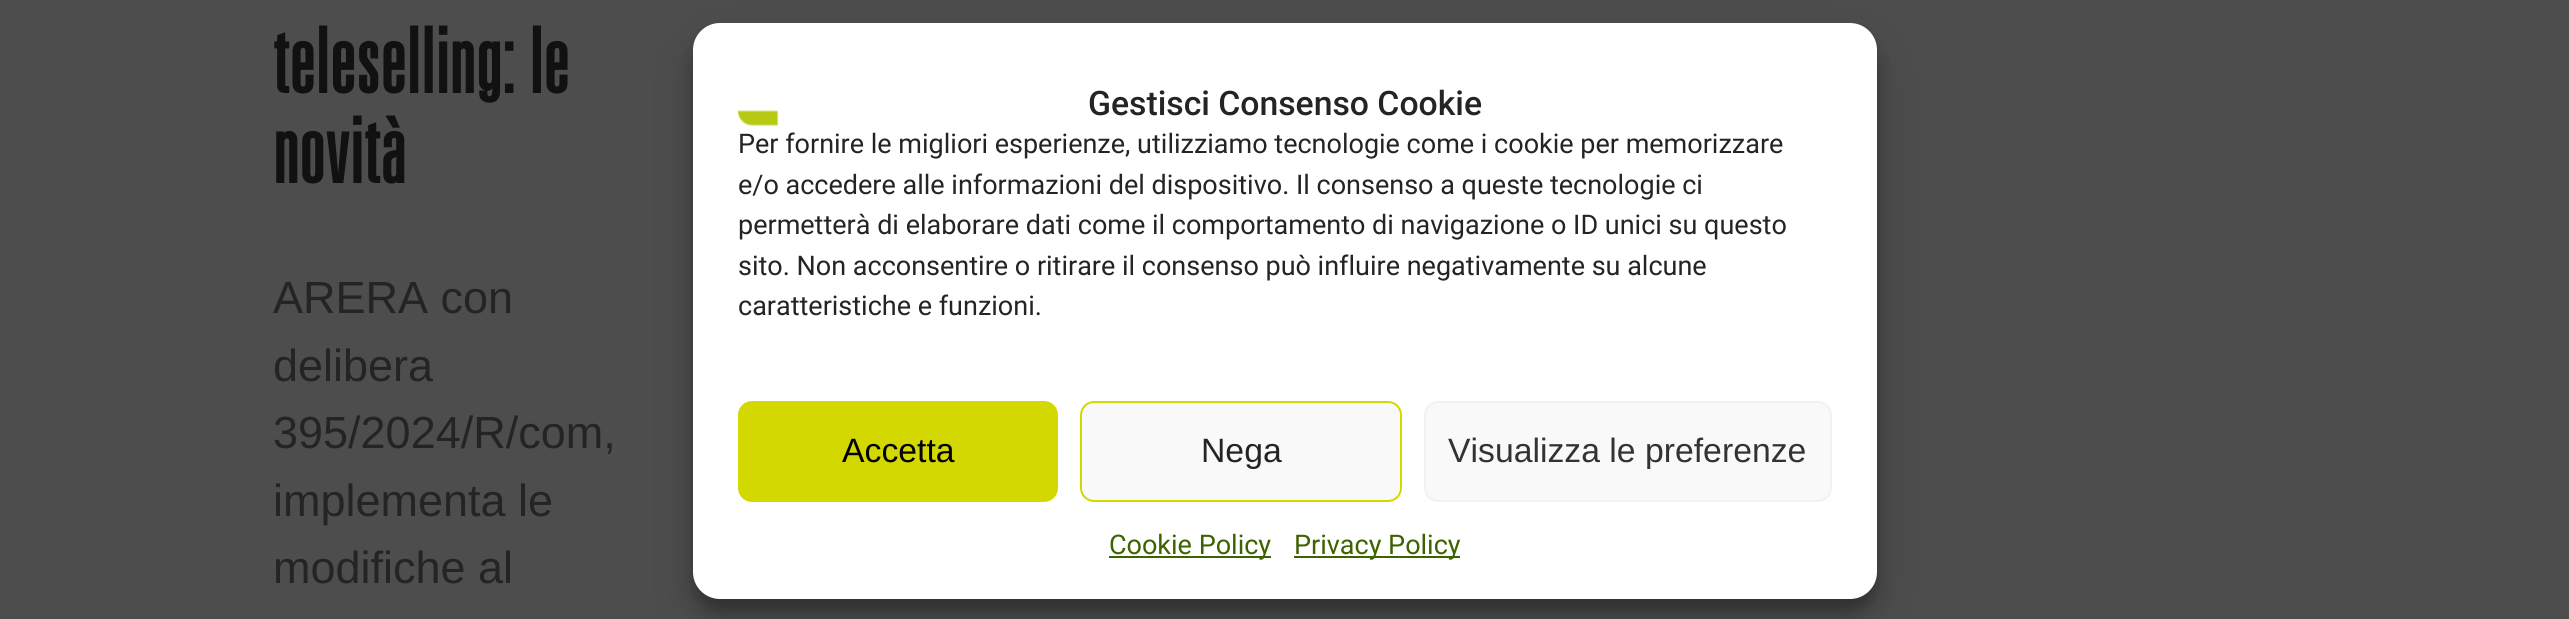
import math
import cairocffi as cairo

surface = cairo.ImageSurface(cairo.FORMAT_RGB24, 2569, 619)
cr = cairo.Context(surface)
options = cairo.FontOptions()
options.set_hint_metrics(cairo.HINT_METRICS_OFF)
options.set_hint_style(cairo.HINT_STYLE_NONE)
cr.set_font_options(options)
cr.set_miter_limit(4)


def use_color(code):
    cr.set_source_rgb(*(v / 255 for v in bytes.fromhex(code[-6:])))


def spaced_text(x, y, s, letter, word):
    cr.move_to(x, y)
    for ch in s:
        cr.show_text(ch)
        cr.rel_move_to(letter + word * (ch == ' '), 0)


def round_rect(x, y, w, h, r):
    cr.new_sub_path()
    for i, (u, v) in enumerate([(x + w - r, y + h - r), (x + r, y + h - r), (x + r, y + r), (x + w - r, y + r)]):
        cr.arc(u, v, r, i * math.pi / 2, (i + 1) * math.pi / 2)
    cr.close_path()


def shadow(x, y, w, h, r, blur, alpha):
    cr.push_group_with_content(cairo.CONTENT_ALPHA)
    cr.set_operator(cairo.OPERATOR_SOURCE)
    for i in range(15, -16, -2):
        e = blur * i / 6
        if min(w, h) + 2 * e > 0:
            cr.set_source_rgba(0, 0, 0, alpha * math.erfc((i - 1) / 8.5) / 2)
            round_rect(x - e, y - e, w + 2 * e, h + 2 * e, max(0, min(r + e + blur * .6, min(w, h) / 2 + e)))
            cr.fill()
    cr.mask(cr.pop_group())


def picture(path, x, y, w, h):
    cr.save()
    cr.set_source_surface(cairo.ImageSurface.create_from_png(path), x, y)
    cr.rectangle(x, y, w, h)
    cr.fill()
    cr.restore()


use_color("#4d4d4d")
cr.paint()
cr.select_font_face("Univers", cairo.FONT_SLANT_NORMAL, cairo.FONT_WEIGHT_BOLD)
cr.set_font_size(90)
use_color("#111112")
spaced_text(273, 93, "teleselling: le", 1.1, 0)
spaced_text(273, 183, "novità", 1.1, 0)
cr.select_font_face("Liberation Sans")
cr.set_font_size(45)
use_color("#242424")
cr.move_to(273, 313)
cr.show_text("ARERA con")
cr.move_to(273, 381)
cr.show_text("delibera")
cr.move_to(273, 448)
cr.show_text("395/2024/R/com,")
cr.move_to(273, 516)
cr.show_text("implementa le")
cr.move_to(273, 583)
cr.show_text("modifiche al")
use_color("#000000")
shadow(693, 36, 1184, 576, 27, 7, 0.23)
shadow(693, 45, 1184, 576, 27, 22.5, 0.19)
use_color("#ffffff")
round_rect(693, 23, 1184, 576, 27)
cr.fill()
cr.select_font_face("Roboto Medium")
cr.set_font_size(33.75)
use_color("#242424")
cr.move_to(1088, 115)
cr.show_text("Gestisci Consenso Cookie")
picture("img1.png", 738, 110, 41, 17)
cr.select_font_face("Roboto")
cr.set_font_size(27)
cr.move_to(738, 153)
cr.show_text("Per fornire le migliori esperienze, utilizziamo tecnologie come i cookie per memorizzare")
cr.move_to(738, 194)
cr.show_text("e/o accedere alle informazioni del dispositivo. Il consenso a queste tecnologie ci")
cr.move_to(738, 234)
cr.show_text("permetterà di elaborare dati come il comportamento di navigazione o ID unici su questo")
cr.move_to(738, 275)
cr.show_text("sito. Non acconsentire o ritirare il consenso può influire negativamente su alcune")
cr.move_to(738, 315)
cr.show_text("caratteristiche e funzioni.")
use_color("#d3d800")
round_rect(739, 402, 318, 99, 13)
cr.fill_preserve()
cr.stroke()
cr.select_font_face("Liberation Sans")
cr.set_font_size(33.75)
use_color("#000000")
cr.move_to(842, 462)
cr.show_text("Accetta")
use_color("#f9f9f9")
round_rect(1081, 402, 320, 99, 13)
cr.fill_preserve()
use_color("#d3d800")
cr.stroke()
use_color("#242424")
cr.move_to(1201, 462)
cr.show_text("Nega")
use_color("#f9f9f9")
round_rect(1425, 402, 406, 99, 13)
cr.fill_preserve()
use_color("#f2f2f2")
cr.stroke()
use_color("#333333")
cr.move_to(1448, 462)
cr.show_text("Visualizza le preferenze")
use_color("#3d6300")
cr.rectangle(1109, 556, 162, 2)
cr.fill()
cr.select_font_face("Roboto")
cr.set_font_size(27)
cr.move_to(1109, 554)
cr.show_text("Cookie Policy")
cr.rectangle(1294, 556, 166, 2)
cr.fill()
cr.move_to(1294, 554)
cr.show_text("Privacy Policy")
surface.write_to_png("result.png")
